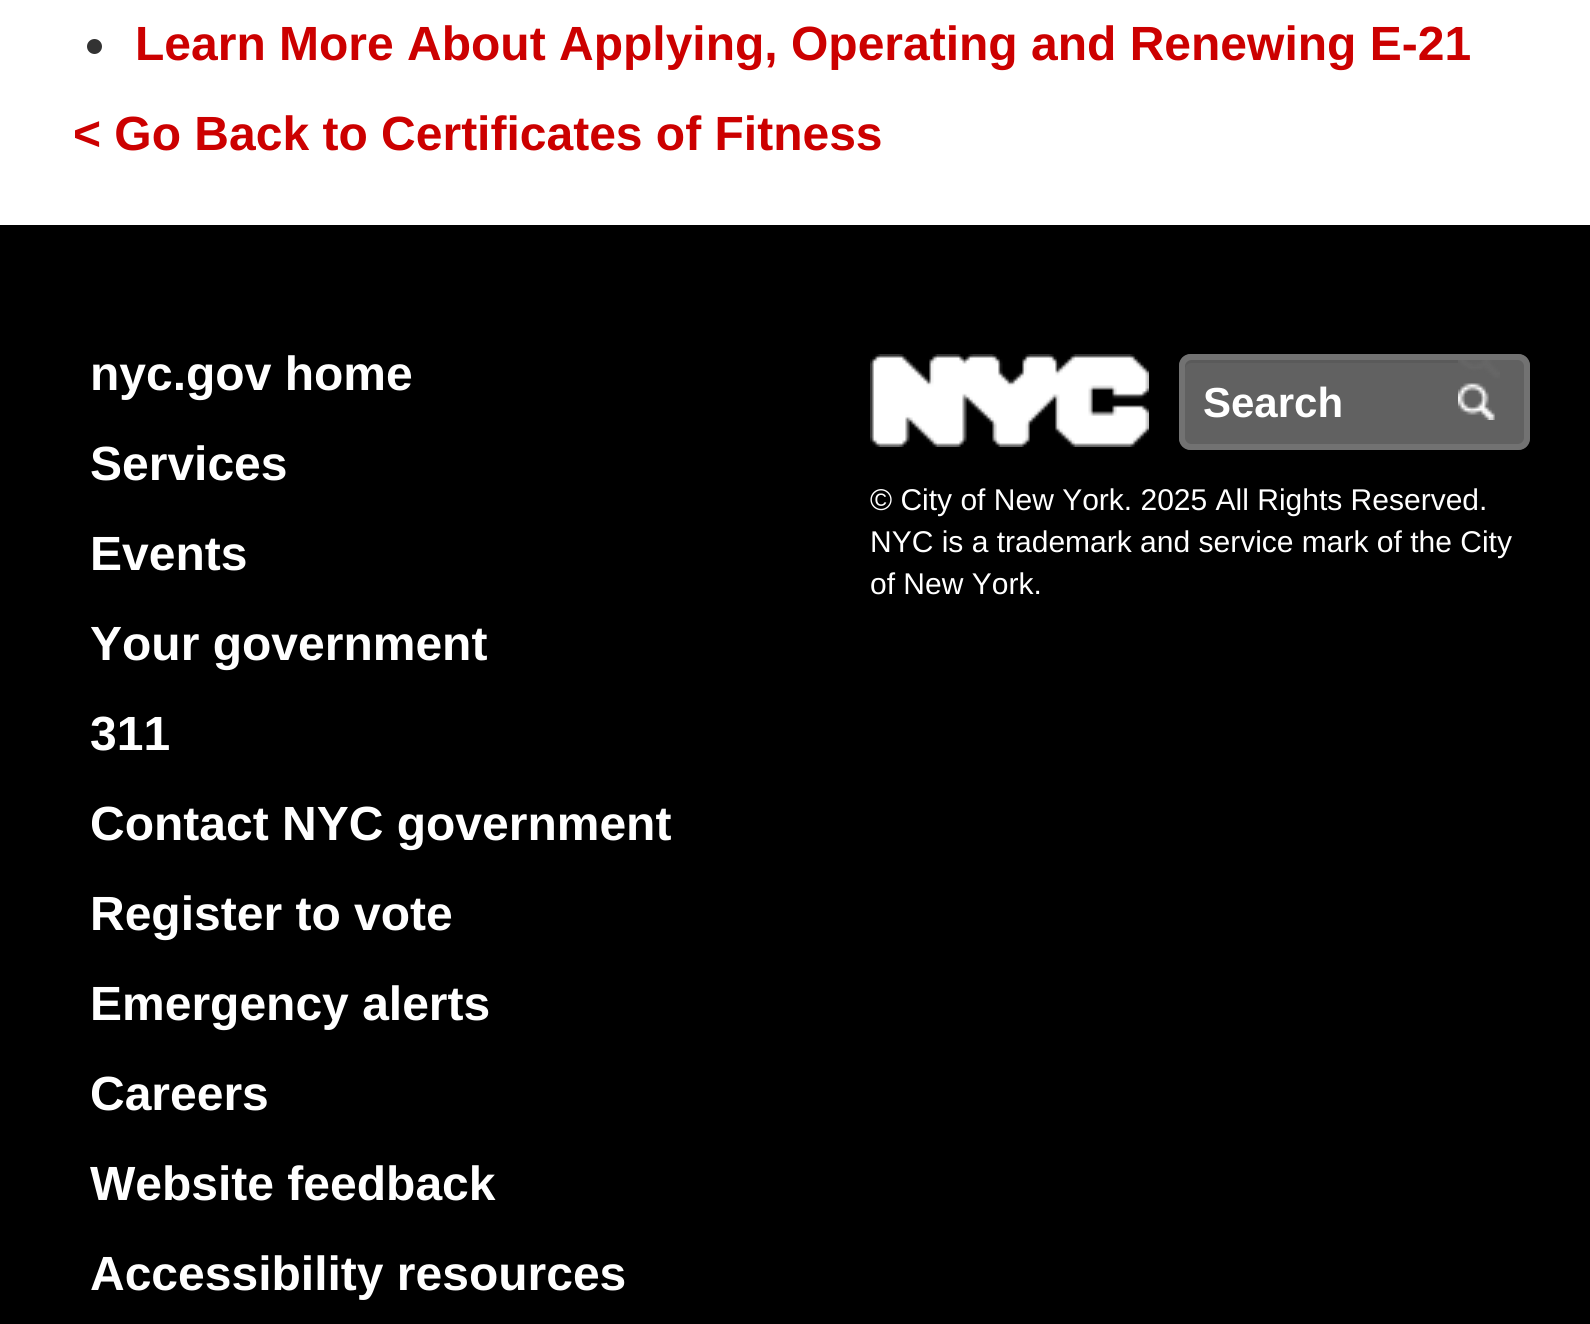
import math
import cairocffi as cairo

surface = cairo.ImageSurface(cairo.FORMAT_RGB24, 1590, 1324)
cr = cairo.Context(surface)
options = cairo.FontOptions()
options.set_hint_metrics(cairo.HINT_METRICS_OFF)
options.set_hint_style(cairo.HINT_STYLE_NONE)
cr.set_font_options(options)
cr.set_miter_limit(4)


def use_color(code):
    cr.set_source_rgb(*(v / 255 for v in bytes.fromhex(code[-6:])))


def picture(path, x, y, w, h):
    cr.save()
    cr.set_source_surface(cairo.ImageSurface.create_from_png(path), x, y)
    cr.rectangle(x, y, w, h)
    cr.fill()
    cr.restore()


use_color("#ffffff")
cr.paint()
use_color("#333333")
cr.arc(94.5, 46.5, 7.5, 0, 2 * math.pi)
cr.fill()
cr.select_font_face("Liberation Sans", cairo.FONT_SLANT_NORMAL, cairo.FONT_WEIGHT_BOLD)
cr.set_font_size(48)
use_color("#cc0000")
cr.move_to(135, 60)
cr.show_text("Learn More About Applying, Operating and Renewing E-21")
cr.move_to(73, 150)
cr.show_text("< Go Back to Certificates of Fitness")
use_color("#000000")
cr.rectangle(0, 225, 1590, 1099)
cr.fill()
use_color("#ffffff")
cr.move_to(90, 390)
cr.show_text("nyc.gov home")
cr.move_to(90, 480)
cr.show_text("Services")
cr.move_to(90, 570)
cr.show_text("Events")
cr.move_to(90, 660)
cr.show_text("Your government")
cr.move_to(90, 750)
cr.show_text("311")
cr.move_to(90, 840)
cr.show_text("Contact NYC government")
cr.move_to(90, 930)
cr.show_text("Register to vote")
cr.move_to(90, 1020)
cr.show_text("Emergency alerts")
cr.move_to(90, 1110)
cr.show_text("Careers")
cr.move_to(90, 1200)
cr.show_text("Website feedback")
cr.move_to(90, 1290)
cr.show_text("Accessibility resources")
picture("img1.png", 870, 354, 279, 93)
use_color("#616161")
cr.new_path()
cr.move_to(1191, 354)
cr.line_to(1458, 354)
cr.line_to(1458, 450)
cr.line_to(1191, 450)
cr.curve_to(1184.5, 450, 1179, 444.5, 1179, 438)
cr.line_to(1179, 366)
cr.curve_to(1179, 359.5, 1184.5, 354, 1191, 354)
cr.close_path()
cr.fill()
use_color("#5a5a5a")
cr.new_path()
cr.move_to(1191, 363)
cr.line_to(1458, 363)
cr.line_to(1458, 360)
cr.line_to(1191, 360)
cr.curve_to(1188, 360, 1185, 363, 1185, 366)
cr.line_to(1185, 369)
cr.curve_to(1185, 366, 1188, 363, 1191, 363)
cr.close_path()
cr.fill()
use_color("#727272")
cr.set_fill_rule(cairo.FILL_RULE_EVEN_ODD)
cr.new_path()
cr.move_to(1191, 354)
cr.line_to(1458, 354)
cr.line_to(1458, 450)
cr.line_to(1191, 450)
cr.curve_to(1184, 450, 1179, 445, 1179, 438)
cr.line_to(1179, 366)
cr.curve_to(1179, 359, 1184, 354, 1191, 354)
cr.close_path()
cr.move_to(1191, 360)
cr.line_to(1458, 360)
cr.line_to(1458, 444)
cr.line_to(1191, 444)
cr.curve_to(1188, 444, 1185, 441, 1185, 438)
cr.line_to(1185, 366)
cr.curve_to(1185, 363, 1188, 360, 1191, 360)
cr.close_path()
cr.fill()
cr.set_font_size(42)
use_color("#ffffff")
cr.move_to(1203, 417)
cr.show_text("Search")
use_color("#616161")
cr.new_path()
cr.move_to(1458, 354)
cr.line_to(1518, 354)
cr.curve_to(1524.5, 354, 1530, 359.5, 1530, 366)
cr.line_to(1530, 438)
cr.curve_to(1530, 444.5, 1524.5, 450, 1518, 450)
cr.line_to(1458, 450)
cr.close_path()
cr.fill()
picture("img2.png", 1458, 360, 42, 60)
use_color("#727272")
cr.new_path()
cr.move_to(1458, 354)
cr.line_to(1518, 354)
cr.curve_to(1525, 354, 1530, 359, 1530, 366)
cr.line_to(1530, 438)
cr.curve_to(1530, 445, 1525, 450, 1518, 450)
cr.line_to(1458, 450)
cr.close_path()
cr.move_to(1458, 360)
cr.line_to(1518, 360)
cr.curve_to(1521, 360, 1524, 363, 1524, 366)
cr.line_to(1524, 438)
cr.curve_to(1524, 441, 1521, 444, 1518, 444)
cr.line_to(1458, 444)
cr.close_path()
cr.fill()
cr.select_font_face("Liberation Sans")
cr.set_font_size(30)
use_color("#ffffff")
cr.move_to(870, 510)
cr.show_text("© City of New York. 2025 All Rights Reserved.")
cr.move_to(870, 552)
cr.show_text("NYC is a trademark and service mark of the City")
cr.move_to(870, 594)
cr.show_text("of New York.")
surface.write_to_png("result.png")
